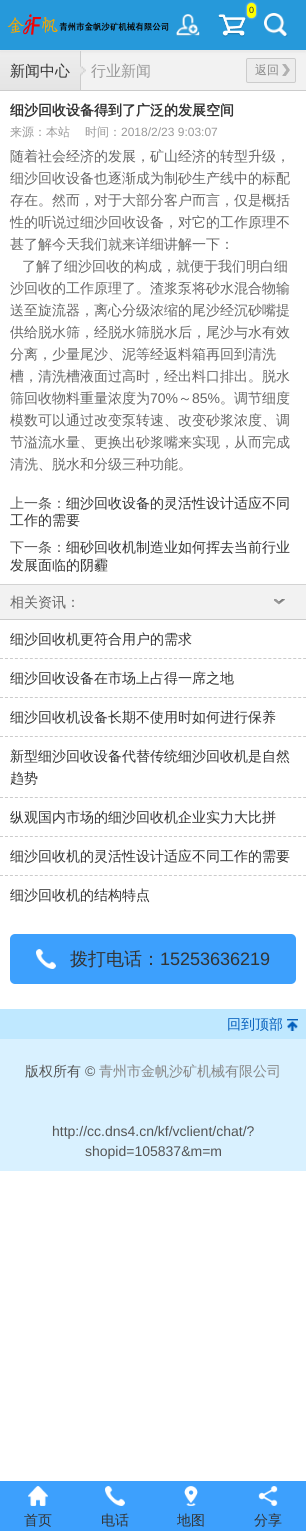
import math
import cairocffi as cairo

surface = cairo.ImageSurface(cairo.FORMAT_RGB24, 306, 1531)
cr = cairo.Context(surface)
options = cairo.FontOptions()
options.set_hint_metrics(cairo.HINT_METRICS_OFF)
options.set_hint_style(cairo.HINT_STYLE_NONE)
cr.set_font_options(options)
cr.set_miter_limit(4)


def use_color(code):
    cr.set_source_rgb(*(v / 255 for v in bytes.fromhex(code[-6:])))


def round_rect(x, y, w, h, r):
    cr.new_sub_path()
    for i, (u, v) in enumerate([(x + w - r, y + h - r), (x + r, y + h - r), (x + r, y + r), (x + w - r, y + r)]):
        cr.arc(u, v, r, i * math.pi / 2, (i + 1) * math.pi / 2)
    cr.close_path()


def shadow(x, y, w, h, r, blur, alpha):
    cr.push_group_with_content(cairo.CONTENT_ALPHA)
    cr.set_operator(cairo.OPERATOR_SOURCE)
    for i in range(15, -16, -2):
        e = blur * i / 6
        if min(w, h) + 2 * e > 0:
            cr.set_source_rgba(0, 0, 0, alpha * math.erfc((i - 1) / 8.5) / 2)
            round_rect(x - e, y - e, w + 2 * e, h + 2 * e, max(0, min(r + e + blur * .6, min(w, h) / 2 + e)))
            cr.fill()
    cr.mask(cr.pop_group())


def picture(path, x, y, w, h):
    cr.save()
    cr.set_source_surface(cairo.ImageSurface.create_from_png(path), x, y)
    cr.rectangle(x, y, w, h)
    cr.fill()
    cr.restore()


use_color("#ffffff")
cr.paint()
use_color("#f2f2f2")
cr.rectangle(86, 51, 220, 39)
cr.fill()
gradient = cairo.LinearGradient(0, 51, 0, 90)
gradient.add_color_stop_rgba(0, 0.933, 0.933, 0.933, 1)
gradient.add_color_stop_rgba(1, 0.894, 0.894, 0.894, 1)
cr.set_source(gradient)
cr.rectangle(0, 51, 80, 39)
cr.fill()
picture("img5.png", 80, 51, 6, 39)
use_color("#cccccc")
shadow(0, 0, 306, 50, 0, 2, 1)
use_color("#2699da")
cr.rectangle(0, 0, 306, 50)
cr.fill()
picture("img1.png", 218, 14, 28, 23)
use_color("#dddddd")
shadow(247, 3, 9, 15, 4.5, 1, 1)
use_color("#ffff00")
round_rect(247, 3, 9, 15, 4.5)
cr.fill()
cr.select_font_face("Liberation Sans")
cr.set_font_size(9)
use_color("#333333")
cr.move_to(249, 13)
cr.show_text("0")
picture("img2.png", 176, 14, 24, 23)
picture("img3.png", 264, 13, 24, 24)
picture("img4.png", 7, 14, 162, 21)
use_color("#cccccc")
cr.rectangle(0, 90, 306, 1)
cr.fill()
cr.select_font_face("WenQuanYi Zen Hei Medium")
cr.set_font_size(15)
use_color("#333333")
cr.move_to(10, 76)
cr.show_text("新闻中心")
use_color("#999999")
cr.move_to(91, 76)
cr.show_text("行业新闻")
use_color("#ededed")
round_rect(246.5, 58.5, 49, 24, 1.5)
cr.fill_preserve()
use_color("#cccccc")
cr.set_line_width(1)
cr.stroke()
cr.set_font_size(12)
use_color("#888888")
cr.move_to(255, 74)
cr.show_text("返回")
picture("img6.png", 282, 64, 8, 12)
cr.select_font_face("WenQuanYi Zen Hei", cairo.FONT_SLANT_NORMAL, cairo.FONT_WEIGHT_BOLD)
cr.set_font_size(14)
use_color("#333333")
cr.move_to(10, 115)
cr.show_text("细沙回收设备得到了广泛的发展空间")
cr.select_font_face("WenQuanYi Zen Hei Medium")
cr.set_font_size(12)
use_color("#999999")
cr.move_to(10, 136)
cr.show_text("来源：本站")
cr.move_to(85, 136)
cr.show_text("时间：")
cr.select_font_face("Liberation Sans")
cr.move_to(121, 136)
cr.show_text("2018/2/23 9:03:07")
cr.select_font_face("WenQuanYi Zen Hei Medium")
cr.set_font_size(14)
use_color("#666666")
cr.move_to(10, 161)
cr.show_text("随着社会经济的发展，矿山经济的转型升级，")
cr.move_to(10, 183)
cr.show_text("细沙回收设备也逐渐成为制砂生产线中的标配")
cr.move_to(10, 205)
cr.show_text("存在。然而，对于大部分客户而言，仅是概括")
cr.move_to(10, 227)
cr.show_text("性的听说过细沙回收设备，对它的工作原理不")
cr.move_to(10, 249)
cr.show_text("甚了解今天我们就来详细讲解一下：")
cr.move_to(22, 271)
cr.show_text("了解了细沙回收的构成，就便于我们明白细")
cr.move_to(10, 293)
cr.show_text("沙回收的工作原理了。渣浆泵将砂水混合物输")
cr.move_to(10, 315)
cr.show_text("送至旋流器，离心分级浓缩的尾沙经沉砂嘴提")
cr.move_to(10, 337)
cr.show_text("供给脱水筛，经脱水筛脱水后，尾沙与水有效")
cr.move_to(10, 359)
cr.show_text("分离，少量尾沙、泥等经返料箱再回到清洗")
cr.move_to(10, 381)
cr.show_text("槽，清洗槽液面过高时，经出料口排出。脱水")
cr.move_to(10, 403)
cr.show_text("筛回收物料重量浓度为")
cr.select_font_face("Liberation Sans")
cr.move_to(150, 403)
cr.show_text("70%")
cr.select_font_face("WenQuanYi Zen Hei Medium")
cr.move_to(178, 403)
cr.show_text("～")
cr.select_font_face("Liberation Sans")
cr.move_to(192, 403)
cr.show_text("85%")
cr.select_font_face("WenQuanYi Zen Hei Medium")
cr.move_to(220, 403)
cr.show_text("。调节细度")
cr.move_to(10, 425)
cr.show_text("模数可以通过改变泵转速、改变砂浆浓度、调")
cr.move_to(10, 447)
cr.show_text("节溢流水量、更换出砂浆嘴来实现，从而完成")
cr.move_to(10, 469)
cr.show_text("清洗、脱水和分级三种功能。")
use_color("#555555")
cr.move_to(10, 508)
cr.show_text("上一条：")
use_color("#333333")
cr.move_to(66, 508)
cr.show_text("细沙回收设备的灵活性设计适应不同")
cr.move_to(10, 525)
cr.show_text("工作的需要")
use_color("#555555")
cr.move_to(10, 552)
cr.show_text("下一条：")
use_color("#333333")
cr.move_to(66, 552)
cr.show_text("细砂回收机制造业如何挥去当前行业")
cr.move_to(10, 570)
cr.show_text("发展面临的阴霾")
use_color("#f2f2f2")
cr.rectangle(0, 585, 306, 34)
cr.fill()
use_color("#d3d3d3")
cr.rectangle(0, 584, 306, 1)
cr.fill()
use_color("#cccccc")
cr.rectangle(0, 619, 306, 1)
cr.fill()
use_color("#666666")
cr.move_to(10, 607)
cr.show_text("相关资讯：")
picture("img7.png", 274, 599, 11, 6)
cr.new_path()
cr.move_to(0, 658.5)
cr.line_to(306, 658.5)
use_color("#cccccc")
cr.set_dash([3, 1.97])
cr.stroke()
use_color("#333333")
cr.move_to(10, 644)
cr.show_text("细沙回收机更符合用户的需求")
cr.new_path()
cr.move_to(0, 697.5)
cr.line_to(306, 697.5)
use_color("#cccccc")
cr.stroke()
use_color("#333333")
cr.move_to(10, 683)
cr.show_text("细沙回收设备在市场上占得一席之地")
cr.new_path()
cr.move_to(0, 736.5)
cr.line_to(306, 736.5)
use_color("#cccccc")
cr.stroke()
use_color("#333333")
cr.move_to(10, 722)
cr.show_text("细沙回收机设备长期不使用时如何进行保养")
cr.new_path()
cr.move_to(0, 797.5)
cr.line_to(306, 797.5)
use_color("#cccccc")
cr.stroke()
use_color("#333333")
cr.move_to(10, 761)
cr.show_text("新型细沙回收设备代替传统细沙回收机是自然")
cr.move_to(10, 783)
cr.show_text("趋势")
cr.new_path()
cr.move_to(0, 836.5)
cr.line_to(306, 836.5)
use_color("#cccccc")
cr.stroke()
use_color("#333333")
cr.move_to(10, 822)
cr.show_text("纵观国内市场的细沙回收机企业实力大比拼")
cr.new_path()
cr.move_to(0, 875.5)
cr.line_to(306, 875.5)
use_color("#cccccc")
cr.stroke()
use_color("#333333")
cr.move_to(10, 861)
cr.show_text("细沙回收机的灵活性设计适应不同工作的需要")
cr.move_to(10, 900)
cr.show_text("细沙回收机的结构特点")
use_color("#3da0fd")
round_rect(10, 934, 286, 50, 5)
cr.fill()
picture("img8.png", 36, 949, 20, 20)
cr.set_font_size(18)
use_color("#333333")
cr.move_to(70, 965)
cr.show_text("拨打电话：")
cr.select_font_face("Liberation Sans")
cr.move_to(160, 965)
cr.show_text("15253636219")
use_color("#bfe8ff")
cr.rectangle(0, 1009, 306, 30)
cr.fill()
cr.select_font_face("WenQuanYi Zen Hei Medium")
cr.set_font_size(14)
use_color("#035ebc")
cr.move_to(227, 1029)
cr.show_text("回到顶部")
picture("img9.png", 287, 1019, 11, 12)
use_color("#d9f1ff")
cr.rectangle(0, 1039, 306, 132)
cr.fill()
use_color("#555555")
cr.move_to(25, 1076)
cr.show_text("版权所有")
cr.select_font_face("Liberation Sans")
cr.move_to(85, 1076)
cr.show_text("©")
cr.select_font_face("WenQuanYi Zen Hei Medium")
use_color("#888888")
cr.move_to(99, 1076)
cr.show_text("青州市金帆沙矿机械有限公司")
cr.select_font_face("Liberation Sans")
use_color("#555555")
cr.move_to(52, 1136)
cr.show_text("http://cc.dns4.cn/kf/vclient/chat/?")
cr.move_to(85, 1156)
cr.show_text("shopid=105837&m=m")
use_color("#3da0fd")
cr.rectangle(0, 1481, 306, 50)
cr.fill()
picture("img10.png", 28, 1486, 20, 20)
cr.select_font_face("WenQuanYi Zen Hei Medium")
use_color("#333333")
cr.move_to(24, 1525)
cr.show_text("首页")
picture("img8.png", 105, 1486, 20, 20)
cr.move_to(101, 1525)
cr.show_text("电话")
picture("img11.png", 184, 1486, 14, 20)
cr.move_to(177, 1525)
cr.show_text("地图")
picture("img12.png", 258, 1486, 20, 20)
cr.move_to(254, 1525)
cr.show_text("分享")
surface.write_to_png("result.png")
